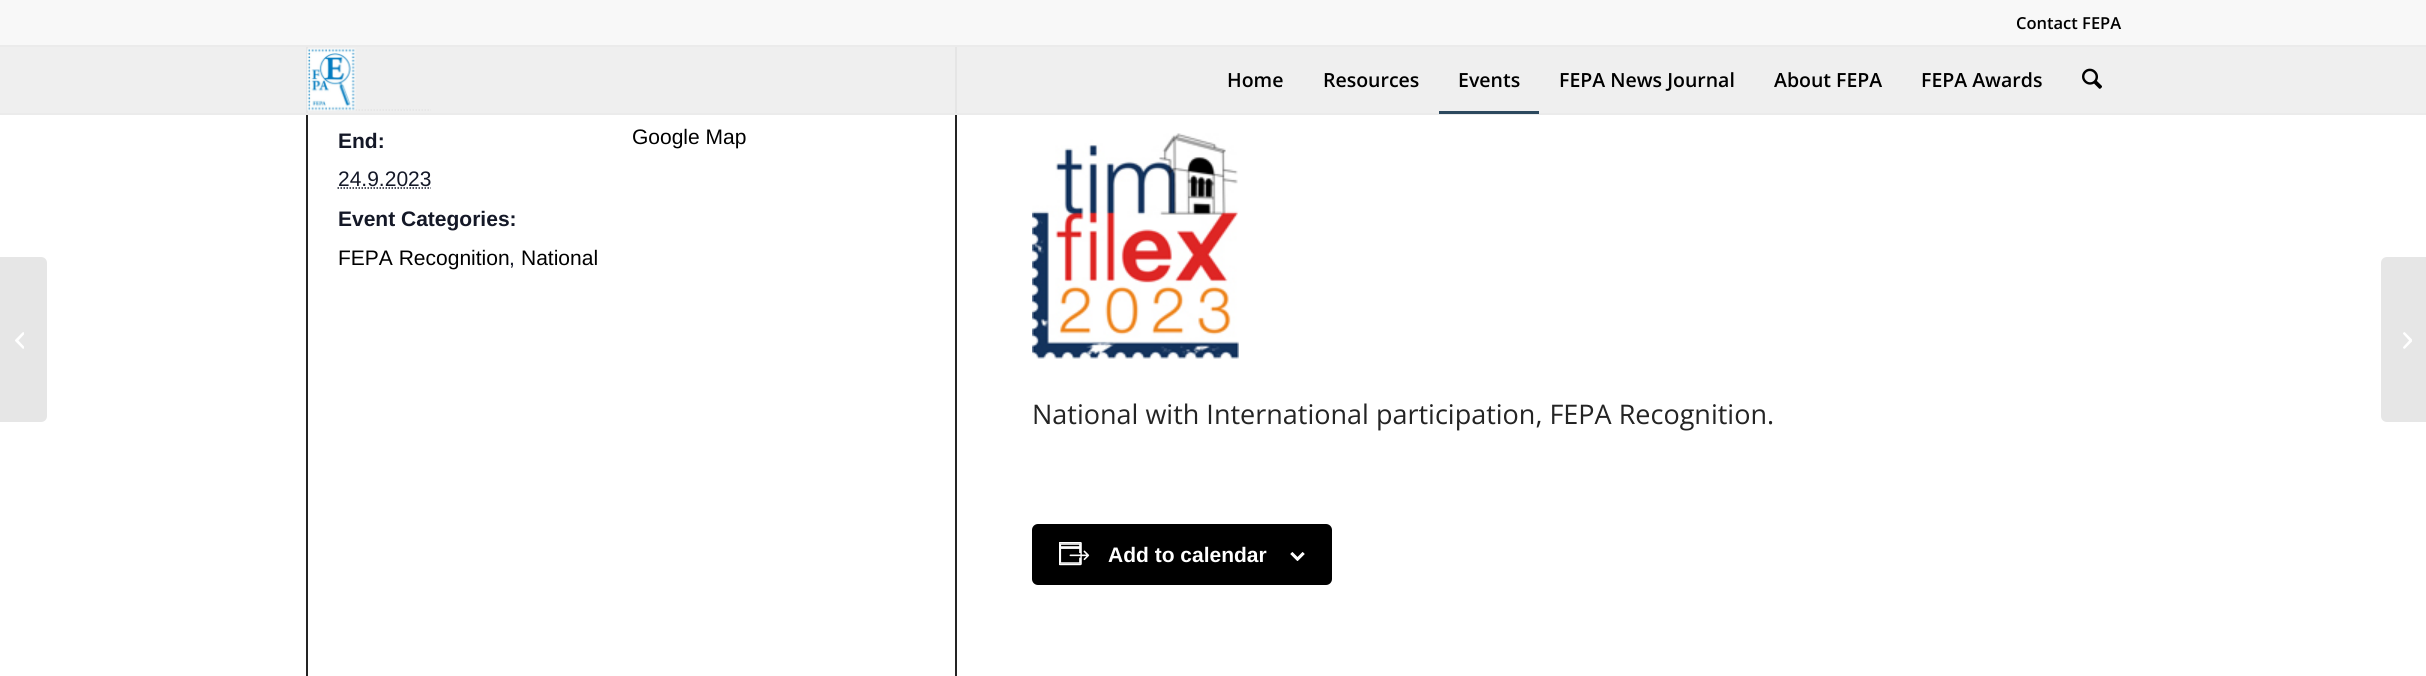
import math
import cairocffi as cairo

surface = cairo.ImageSurface(cairo.FORMAT_RGB24, 2426, 676)
cr = cairo.Context(surface)
options = cairo.FontOptions()
options.set_hint_metrics(cairo.HINT_METRICS_OFF)
options.set_hint_style(cairo.HINT_STYLE_NONE)
cr.set_font_options(options)
cr.set_miter_limit(4)


def use_color(code):
    cr.set_source_rgb(*(v / 255 for v in bytes.fromhex(code[-6:])))


def round_rect(x, y, w, h, r):
    cr.new_sub_path()
    for i, (u, v) in enumerate([(x + w - r, y + h - r), (x + r, y + h - r), (x + r, y + r), (x + w - r, y + r)]):
        cr.arc(u, v, r, i * math.pi / 2, (i + 1) * math.pi / 2)
    cr.close_path()


def picture(path, x, y, w, h):
    cr.save()
    cr.set_source_surface(cairo.ImageSurface.create_from_png(path), x, y)
    cr.rectangle(x, y, w, h)
    cr.fill()
    cr.restore()


use_color("#ffffff")
cr.paint()
cr.rectangle(307, -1, 649, 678)
use_color("#242424")
cr.stroke()
use_color("#f8f8f8")
cr.rectangle(0, 0, 2426, 45)
cr.fill()
use_color("#ebebeb")
cr.rectangle(0, 45, 2426, 2)
cr.fill()
cr.select_font_face("Open Sans SemiBold")
cr.set_font_size(16.5)
use_color("#000000")
cr.move_to(2016, 29)
cr.show_text("Contact FEPA")
cr.new_path()
cr.move_to(337.5, 110)
cr.line_to(431, 110)
use_color("#141827")
cr.set_line_width(1.5)
cr.set_dash([1.5, 1.5])
cr.stroke()
cr.set_source_rgba(0.937, 0.937, 0.937, 0.95)
cr.rectangle(0, 47, 2426, 66)
cr.fill()
use_color("#ebebeb")
cr.rectangle(0, 113, 2426, 2)
cr.fill()
picture("img1.png", 307, 48, 49, 63)
cr.set_font_size(19.5)
use_color("#000000")
cr.move_to(1227, 87)
cr.show_text("Home")
cr.move_to(1323, 87)
cr.show_text("Resources")
cr.move_to(1458, 87)
cr.show_text("Events")
use_color("#2c495e")
cr.rectangle(1439, 111, 100, 3)
cr.fill()
use_color("#000000")
cr.move_to(1559, 87)
cr.show_text("FEPA News Journal")
cr.move_to(1774, 87)
cr.show_text("About FEPA")
cr.move_to(1921, 87)
cr.show_text("FEPA Awards")
picture("img2.png", 2082, 68, 20, 21)
use_color("#e6e6e6")
cr.new_path()
cr.move_to(0, 257)
cr.line_to(41, 257)
cr.curve_to(44.5, 257, 47, 259.5, 47, 263)
cr.line_to(47, 416)
cr.curve_to(47, 419.5, 44.5, 422, 41, 422)
cr.line_to(0, 422)
cr.close_path()
cr.fill()
picture("img3.png", 15, 332, 9, 17)
cr.select_font_face("Liberation Sans", cairo.FONT_SLANT_NORMAL, cairo.FONT_WEIGHT_BOLD)
cr.set_font_size(21)
use_color("#141827")
cr.move_to(338, 148)
cr.show_text("End:")
cr.select_font_face("Liberation Sans")
cr.move_to(338, 186)
cr.show_text("24.9.2023")
cr.new_path()
cr.move_to(337.5, 188)
cr.line_to(431, 188)
cr.stroke()
cr.select_font_face("Liberation Sans", cairo.FONT_SLANT_NORMAL, cairo.FONT_WEIGHT_BOLD)
cr.move_to(338, 226)
cr.show_text("Event Categories:")
cr.select_font_face("Liberation Sans")
use_color("#000000")
cr.move_to(338, 265)
cr.show_text("FEPA Recognition")
use_color("#141827")
cr.move_to(509, 265)
cr.show_text(",")
use_color("#000000")
cr.move_to(521, 265)
cr.show_text("National")
cr.move_to(632, 144)
cr.show_text("Google Map")
picture("img4.png", 1032, 133, 207, 226)
cr.select_font_face("Open Sans")
cr.set_font_size(27)
use_color("#242424")
cr.move_to(1032, 424)
cr.show_text("National with International participation, FEPA Recognition.")
use_color("#000000")
round_rect(1033, 525, 298, 59, 5)
cr.fill_preserve()
cr.set_line_width(2)
cr.set_dash([])
cr.stroke()
picture("img5.png", 1059, 542, 31, 24)
cr.select_font_face("Liberation Sans", cairo.FONT_SLANT_NORMAL, cairo.FONT_WEIGHT_BOLD)
cr.set_font_size(21)
use_color("#ffffff")
cr.move_to(1108, 562)
cr.show_text("Add to calendar")
picture("img6.png", 1290, 552, 15, 9)
use_color("#e6e6e6")
cr.new_path()
cr.move_to(2387, 257)
cr.line_to(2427, 257)
cr.line_to(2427, 422)
cr.line_to(2387, 422)
cr.curve_to(2383.5, 422, 2381, 419.5, 2381, 416)
cr.line_to(2381, 263)
cr.curve_to(2381, 259.5, 2383.5, 257, 2387, 257)
cr.close_path()
cr.fill()
picture("img7.png", 2403, 332, 9, 17)
surface.write_to_png("result.png")
